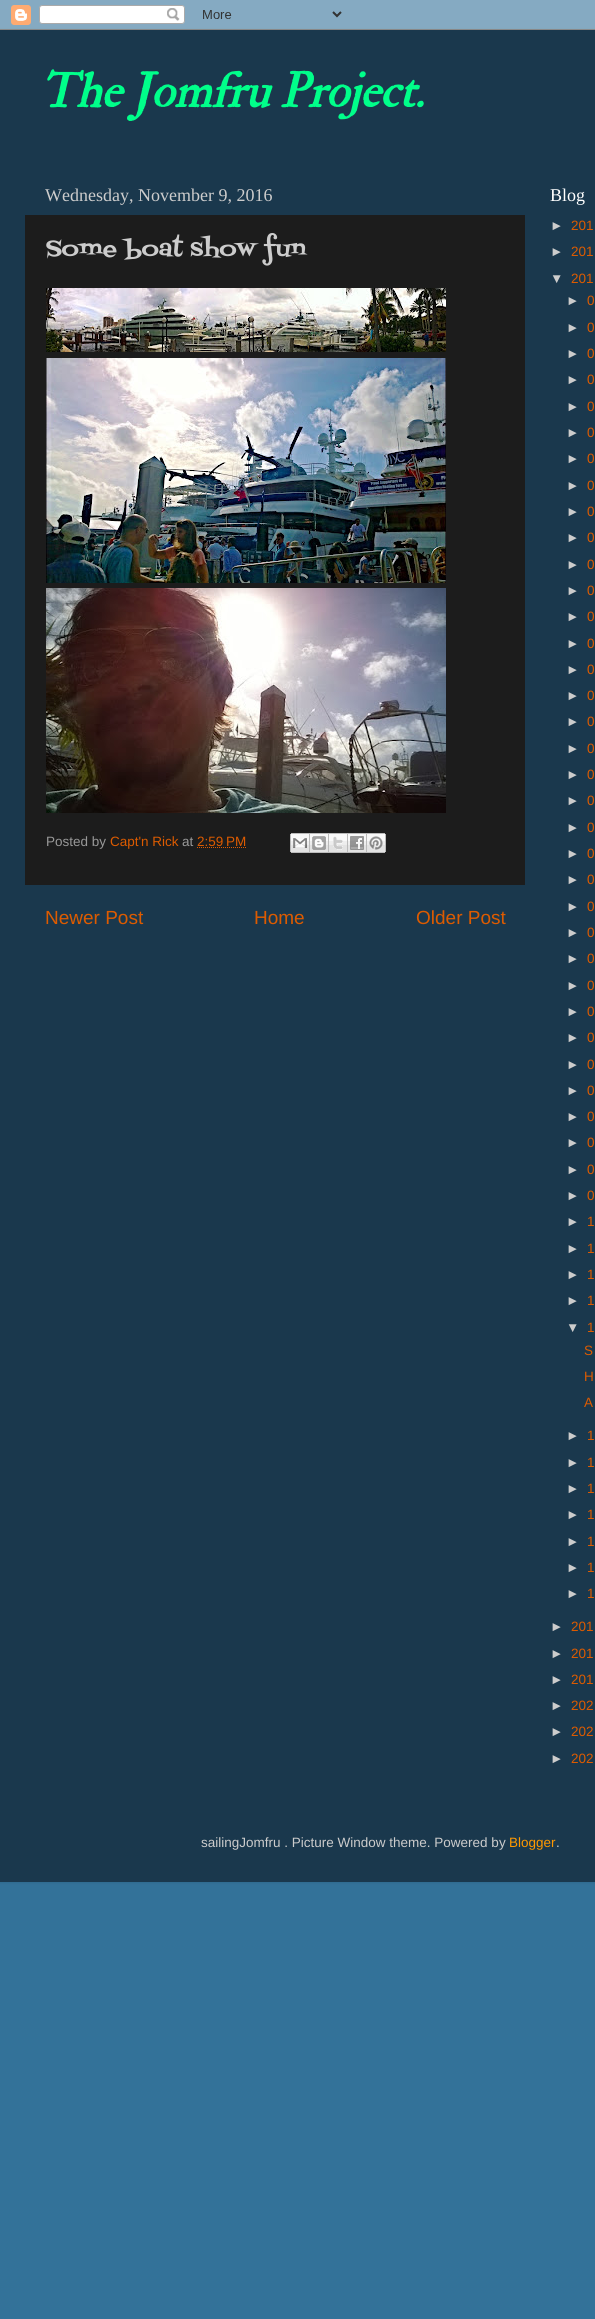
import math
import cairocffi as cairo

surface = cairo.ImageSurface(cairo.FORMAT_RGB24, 595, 2319)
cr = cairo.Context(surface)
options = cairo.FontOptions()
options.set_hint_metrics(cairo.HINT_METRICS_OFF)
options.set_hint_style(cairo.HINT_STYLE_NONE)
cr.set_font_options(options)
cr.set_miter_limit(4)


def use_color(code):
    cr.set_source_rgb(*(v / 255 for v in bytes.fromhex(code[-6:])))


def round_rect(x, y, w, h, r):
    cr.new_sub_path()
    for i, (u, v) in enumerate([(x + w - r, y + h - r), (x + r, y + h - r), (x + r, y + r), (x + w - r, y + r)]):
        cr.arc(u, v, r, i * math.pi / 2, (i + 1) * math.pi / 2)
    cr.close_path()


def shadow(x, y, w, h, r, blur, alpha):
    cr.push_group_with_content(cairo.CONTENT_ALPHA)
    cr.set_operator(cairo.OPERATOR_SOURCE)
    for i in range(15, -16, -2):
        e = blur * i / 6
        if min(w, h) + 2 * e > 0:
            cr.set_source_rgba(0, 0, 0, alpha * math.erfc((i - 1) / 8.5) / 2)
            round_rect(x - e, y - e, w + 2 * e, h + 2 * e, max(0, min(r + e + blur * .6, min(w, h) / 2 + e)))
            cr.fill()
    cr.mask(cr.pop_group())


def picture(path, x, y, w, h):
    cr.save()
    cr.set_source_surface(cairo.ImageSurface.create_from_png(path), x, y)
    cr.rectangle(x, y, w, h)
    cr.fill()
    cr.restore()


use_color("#337299")
cr.paint()
use_color("#000000")
shadow(0, 30, 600, 1852, 0, 1.5, 0.15)
picture("img1.png", 0, 0, 595, 30)
use_color("#1a384d")
cr.rectangle(0, 30, 595, 1852)
cr.fill()
cr.select_font_face("IM FELL Double Pica", cairo.FONT_SLANT_ITALIC, cairo.FONT_WEIGHT_BOLD)
cr.set_font_size(48)
use_color("#00ff8a")
cr.move_to(40, 107)
cr.show_text("The Jomfru Project.")
cr.select_font_face("Liberation Serif")
cr.set_font_size(18)
use_color("#cccccc")
cr.move_to(45, 201)
cr.show_text("Wednesday, November 9, 2016")
use_color("#1c1c1c")
cr.rectangle(25, 215, 500, 670)
cr.fill()
cr.select_font_face("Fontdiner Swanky")
cr.set_font_size(24)
use_color("#cccccc")
cr.move_to(46, 256)
cr.show_text("Some boat show fun")
picture("img2.png", 46, 288, 400, 64)
picture("img3.png", 46, 358, 400, 225)
picture("img4.png", 46, 588, 400, 225)
cr.select_font_face("Liberation Sans")
cr.set_font_size(13.5)
use_color("#999999")
cr.move_to(46, 846)
cr.show_text("Posted by")
use_color("#dd5b00")
cr.move_to(110, 846)
cr.show_text("Capt'n Rick")
use_color("#999999")
cr.move_to(182, 846)
cr.show_text("at")
use_color("#dd5b00")
cr.move_to(197, 846)
cr.show_text("2:59 PM")
cr.new_path()
cr.move_to(197, 847.5)
cr.line_to(246.5, 847.5)
cr.set_line_width(1)
cr.set_dash([1, 1])
cr.stroke()
picture("img5.png", 290, 833, 20, 20)
picture("img6.png", 310, 833, 19, 20)
picture("img7.png", 329, 833, 19, 20)
picture("img8.png", 348, 833, 19, 20)
picture("img9.png", 367, 833, 19, 20)
cr.set_font_size(19)
cr.move_to(45, 924)
cr.show_text("Newer Post")
cr.move_to(254, 924)
cr.show_text("Home")
cr.move_to(416, 924)
cr.show_text("Older Post")
cr.select_font_face("Liberation Serif")
cr.set_font_size(18)
use_color("#ffffff")
cr.move_to(550, 201)
cr.show_text("Blog")
cr.select_font_face("Liberation Sans")
cr.set_font_size(13.5)
use_color("#cccccc")
cr.move_to(550, 230)
cr.show_text("►")
use_color("#dd5b00")
cr.move_to(571, 230)
cr.show_text("201")
use_color("#cccccc")
cr.move_to(550, 256)
cr.show_text("►")
use_color("#dd5b00")
cr.move_to(571, 256)
cr.show_text("201")
use_color("#cccccc")
cr.move_to(550, 283)
cr.show_text("▼")
use_color("#dd5b00")
cr.move_to(571, 283)
cr.show_text("201")
use_color("#cccccc")
cr.move_to(566, 305)
cr.show_text("►")
use_color("#dd5b00")
cr.move_to(587, 305)
cr.show_text("0")
use_color("#cccccc")
cr.move_to(566, 332)
cr.show_text("►")
use_color("#dd5b00")
cr.move_to(587, 332)
cr.show_text("0")
use_color("#cccccc")
cr.move_to(566, 358)
cr.show_text("►")
use_color("#dd5b00")
cr.move_to(587, 358)
cr.show_text("0")
use_color("#cccccc")
cr.move_to(566, 384)
cr.show_text("►")
use_color("#dd5b00")
cr.move_to(587, 384)
cr.show_text("0")
use_color("#cccccc")
cr.move_to(566, 411)
cr.show_text("►")
use_color("#dd5b00")
cr.move_to(587, 411)
cr.show_text("0")
use_color("#cccccc")
cr.move_to(566, 437)
cr.show_text("►")
use_color("#dd5b00")
cr.move_to(587, 437)
cr.show_text("0")
use_color("#cccccc")
cr.move_to(566, 463)
cr.show_text("►")
use_color("#dd5b00")
cr.move_to(587, 463)
cr.show_text("0")
use_color("#cccccc")
cr.move_to(566, 490)
cr.show_text("►")
use_color("#dd5b00")
cr.move_to(587, 490)
cr.show_text("0")
use_color("#cccccc")
cr.move_to(566, 516)
cr.show_text("►")
use_color("#dd5b00")
cr.move_to(587, 516)
cr.show_text("0")
use_color("#cccccc")
cr.move_to(566, 542)
cr.show_text("►")
use_color("#dd5b00")
cr.move_to(587, 542)
cr.show_text("0")
use_color("#cccccc")
cr.move_to(566, 569)
cr.show_text("►")
use_color("#dd5b00")
cr.move_to(587, 569)
cr.show_text("0")
use_color("#cccccc")
cr.move_to(566, 595)
cr.show_text("►")
use_color("#dd5b00")
cr.move_to(587, 595)
cr.show_text("0")
use_color("#cccccc")
cr.move_to(566, 621)
cr.show_text("►")
use_color("#dd5b00")
cr.move_to(587, 621)
cr.show_text("0")
use_color("#cccccc")
cr.move_to(566, 648)
cr.show_text("►")
use_color("#dd5b00")
cr.move_to(587, 648)
cr.show_text("0")
use_color("#cccccc")
cr.move_to(566, 674)
cr.show_text("►")
use_color("#dd5b00")
cr.move_to(587, 674)
cr.show_text("0")
use_color("#cccccc")
cr.move_to(566, 700)
cr.show_text("►")
use_color("#dd5b00")
cr.move_to(587, 700)
cr.show_text("0")
use_color("#cccccc")
cr.move_to(566, 726)
cr.show_text("►")
use_color("#dd5b00")
cr.move_to(587, 726)
cr.show_text("0")
use_color("#cccccc")
cr.move_to(566, 753)
cr.show_text("►")
use_color("#dd5b00")
cr.move_to(587, 753)
cr.show_text("0")
use_color("#cccccc")
cr.move_to(566, 779)
cr.show_text("►")
use_color("#dd5b00")
cr.move_to(587, 779)
cr.show_text("0")
use_color("#cccccc")
cr.move_to(566, 805)
cr.show_text("►")
use_color("#dd5b00")
cr.move_to(587, 805)
cr.show_text("0")
use_color("#cccccc")
cr.move_to(566, 832)
cr.show_text("►")
use_color("#dd5b00")
cr.move_to(587, 832)
cr.show_text("0")
use_color("#cccccc")
cr.move_to(566, 858)
cr.show_text("►")
use_color("#dd5b00")
cr.move_to(587, 858)
cr.show_text("0")
use_color("#cccccc")
cr.move_to(566, 884)
cr.show_text("►")
use_color("#dd5b00")
cr.move_to(587, 884)
cr.show_text("0")
use_color("#cccccc")
cr.move_to(566, 911)
cr.show_text("►")
use_color("#dd5b00")
cr.move_to(587, 911)
cr.show_text("0")
use_color("#cccccc")
cr.move_to(566, 937)
cr.show_text("►")
use_color("#dd5b00")
cr.move_to(587, 937)
cr.show_text("0")
use_color("#cccccc")
cr.move_to(566, 963)
cr.show_text("►")
use_color("#dd5b00")
cr.move_to(587, 963)
cr.show_text("0")
use_color("#cccccc")
cr.move_to(566, 990)
cr.show_text("►")
use_color("#dd5b00")
cr.move_to(587, 990)
cr.show_text("0")
use_color("#cccccc")
cr.move_to(566, 1016)
cr.show_text("►")
use_color("#dd5b00")
cr.move_to(587, 1016)
cr.show_text("0")
use_color("#cccccc")
cr.move_to(566, 1042)
cr.show_text("►")
use_color("#dd5b00")
cr.move_to(587, 1042)
cr.show_text("0")
use_color("#cccccc")
cr.move_to(566, 1069)
cr.show_text("►")
use_color("#dd5b00")
cr.move_to(587, 1069)
cr.show_text("0")
use_color("#cccccc")
cr.move_to(566, 1095)
cr.show_text("►")
use_color("#dd5b00")
cr.move_to(587, 1095)
cr.show_text("0")
use_color("#cccccc")
cr.move_to(566, 1121)
cr.show_text("►")
use_color("#dd5b00")
cr.move_to(587, 1121)
cr.show_text("0")
use_color("#cccccc")
cr.move_to(566, 1147)
cr.show_text("►")
use_color("#dd5b00")
cr.move_to(587, 1147)
cr.show_text("0")
use_color("#cccccc")
cr.move_to(566, 1174)
cr.show_text("►")
use_color("#dd5b00")
cr.move_to(587, 1174)
cr.show_text("0")
use_color("#cccccc")
cr.move_to(566, 1200)
cr.show_text("►")
use_color("#dd5b00")
cr.move_to(587, 1200)
cr.show_text("0")
use_color("#cccccc")
cr.move_to(566, 1226)
cr.show_text("►")
use_color("#dd5b00")
cr.move_to(587, 1226)
cr.show_text("1")
use_color("#cccccc")
cr.move_to(566, 1253)
cr.show_text("►")
use_color("#dd5b00")
cr.move_to(587, 1253)
cr.show_text("1")
use_color("#cccccc")
cr.move_to(566, 1279)
cr.show_text("►")
use_color("#dd5b00")
cr.move_to(587, 1279)
cr.show_text("1")
use_color("#cccccc")
cr.move_to(566, 1305)
cr.show_text("►")
use_color("#dd5b00")
cr.move_to(587, 1305)
cr.show_text("1")
use_color("#cccccc")
cr.move_to(566, 1332)
cr.show_text("▼")
use_color("#dd5b00")
cr.move_to(587, 1332)
cr.show_text("1")
cr.move_to(584, 1355)
cr.show_text("S")
cr.move_to(584, 1381)
cr.show_text("H")
cr.move_to(584, 1407)
cr.show_text("A")
use_color("#cccccc")
cr.move_to(566, 1440)
cr.show_text("►")
use_color("#dd5b00")
cr.move_to(587, 1440)
cr.show_text("1")
use_color("#cccccc")
cr.move_to(566, 1467)
cr.show_text("►")
use_color("#dd5b00")
cr.move_to(587, 1467)
cr.show_text("1")
use_color("#cccccc")
cr.move_to(566, 1493)
cr.show_text("►")
use_color("#dd5b00")
cr.move_to(587, 1493)
cr.show_text("1")
use_color("#cccccc")
cr.move_to(566, 1519)
cr.show_text("►")
use_color("#dd5b00")
cr.move_to(587, 1519)
cr.show_text("1")
use_color("#cccccc")
cr.move_to(566, 1546)
cr.show_text("►")
use_color("#dd5b00")
cr.move_to(587, 1546)
cr.show_text("1")
use_color("#cccccc")
cr.move_to(566, 1572)
cr.show_text("►")
use_color("#dd5b00")
cr.move_to(587, 1572)
cr.show_text("1")
use_color("#cccccc")
cr.move_to(566, 1598)
cr.show_text("►")
use_color("#dd5b00")
cr.move_to(587, 1598)
cr.show_text("1")
use_color("#cccccc")
cr.move_to(550, 1631)
cr.show_text("►")
use_color("#dd5b00")
cr.move_to(571, 1631)
cr.show_text("201")
use_color("#cccccc")
cr.move_to(550, 1658)
cr.show_text("►")
use_color("#dd5b00")
cr.move_to(571, 1658)
cr.show_text("201")
use_color("#cccccc")
cr.move_to(550, 1684)
cr.show_text("►")
use_color("#dd5b00")
cr.move_to(571, 1684)
cr.show_text("201")
use_color("#cccccc")
cr.move_to(550, 1710)
cr.show_text("►")
use_color("#dd5b00")
cr.move_to(571, 1710)
cr.show_text("202")
use_color("#cccccc")
cr.move_to(550, 1736)
cr.show_text("►")
use_color("#dd5b00")
cr.move_to(571, 1736)
cr.show_text("202")
use_color("#cccccc")
cr.move_to(550, 1763)
cr.show_text("►")
use_color("#dd5b00")
cr.move_to(571, 1763)
cr.show_text("202")
use_color("#cccccc")
cr.move_to(201, 1847)
cr.show_text("sailingJomfru . Picture Window theme. Powered by")
use_color("#ff9900")
cr.move_to(509, 1847)
cr.show_text("Blogger")
use_color("#cccccc")
cr.move_to(556, 1847)
cr.show_text(".")
surface.write_to_png("result.png")
